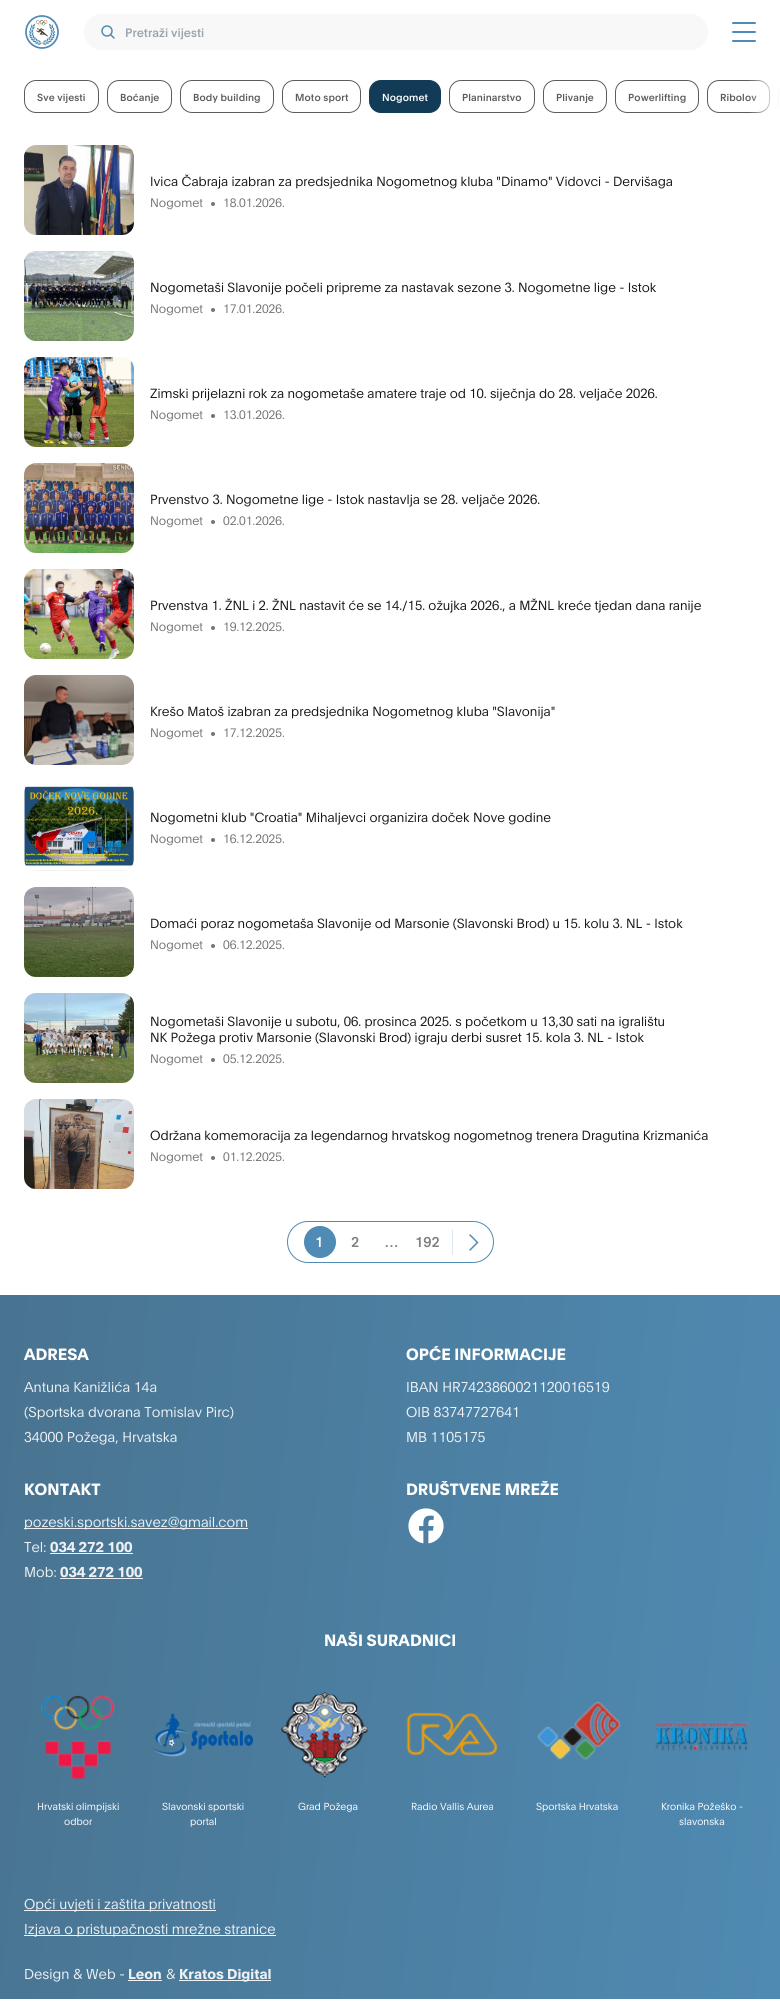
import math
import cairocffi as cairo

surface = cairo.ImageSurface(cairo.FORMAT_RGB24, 780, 2001)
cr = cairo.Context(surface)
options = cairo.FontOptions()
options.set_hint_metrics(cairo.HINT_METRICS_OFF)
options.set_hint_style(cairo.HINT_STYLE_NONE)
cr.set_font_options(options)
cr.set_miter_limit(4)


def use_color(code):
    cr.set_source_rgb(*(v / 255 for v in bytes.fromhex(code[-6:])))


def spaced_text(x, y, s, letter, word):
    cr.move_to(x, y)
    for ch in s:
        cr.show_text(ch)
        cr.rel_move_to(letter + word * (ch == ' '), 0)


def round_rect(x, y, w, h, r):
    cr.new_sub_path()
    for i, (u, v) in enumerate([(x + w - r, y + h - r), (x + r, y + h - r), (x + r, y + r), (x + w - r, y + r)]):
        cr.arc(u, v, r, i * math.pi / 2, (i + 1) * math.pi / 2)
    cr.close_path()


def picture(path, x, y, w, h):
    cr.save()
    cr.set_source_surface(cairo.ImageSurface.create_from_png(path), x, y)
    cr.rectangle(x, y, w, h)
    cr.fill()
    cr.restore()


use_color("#ffffff")
cr.paint()
picture("img1.png", 25, 15, 34, 34)
use_color("#f8f8f8")
round_rect(84, 14, 624, 36, 18)
cr.fill()
picture("img2.png", 101, 25, 14, 14)
cr.select_font_face("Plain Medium")
cr.set_font_size(12)
use_color("#9ca3af")
cr.move_to(125, 37)
cr.show_text("Pretraži vijesti")
use_color("#4f8bb4")
round_rect(732, 22, 24, 2, 1)
cr.fill()
round_rect(732, 31, 24, 2, 1)
cr.fill()
round_rect(732, 40, 24, 2, 1)
cr.fill()
round_rect(24.5, 80.5, 74, 32, 11.5)
use_color("#5c5c5c")
cr.set_line_width(1)
cr.stroke()
cr.set_font_size(10)
spaced_text(37, 101, "Sve vijesti", 0.1, 0)
round_rect(107.5, 80.5, 64, 32, 11.5)
cr.stroke()
spaced_text(120, 101, "Boćanje", 0.1, 0)
round_rect(180.5, 80.5, 93, 32, 11.5)
cr.stroke()
spaced_text(193, 101, "Body building", 0.1, 0)
round_rect(282.5, 80.5, 78, 32, 11.5)
cr.stroke()
spaced_text(295, 101, "Moto sport", 0.1, 0)
use_color("#113b57")
round_rect(369.5, 80.5, 71, 32, 11.5)
cr.fill_preserve()
cr.stroke()
use_color("#ffffff")
spaced_text(382, 101, "Nogomet", 0.1, 0)
round_rect(449.5, 80.5, 85, 32, 11.5)
use_color("#5c5c5c")
cr.stroke()
spaced_text(462, 101, "Planinarstvo", 0.1, 0)
round_rect(543.5, 80.5, 63, 32, 11.5)
cr.stroke()
spaced_text(556, 101, "Plivanje", 0.1, 0)
round_rect(615.5, 80.5, 83, 32, 11.5)
cr.stroke()
spaced_text(628, 101, "Powerlifting", 0.1, 0)
round_rect(707.5, 80.5, 62, 32, 11.5)
cr.stroke()
spaced_text(720, 101, "Ribolov", 0.1, 0)
round_rect(778.5, 80.5, 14, 32, 11.5)
cr.stroke()
gradient = cairo.LinearGradient(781, 88, 747, 89)
gradient.add_color_stop_rgba(0.04, 1, 1, 1, 1)
gradient.add_color_stop_rgba(0.98, 1, 1, 1, 0)
cr.set_source(gradient)
cr.rectangle(748, 80, 32, 33)
cr.fill()
picture("img3.png", 24, 145, 110, 90)
cr.select_font_face("Plain Light")
cr.set_font_size(13)
use_color("#161616")
cr.move_to(150, 186)
cr.show_text("Ivica Čabraja izabran za predsjednika Nogometnog kluba \"Dinamo\" Vidovci - Dervišaga")
cr.set_font_size(12)
use_color("#737373")
cr.move_to(150, 207)
cr.show_text("Nogomet")
cr.new_path()
cr.arc(213, 204, 2, 0, 2 * math.pi)
cr.fill()
cr.move_to(223, 207)
cr.show_text("18.01.2026.")
picture("img4.png", 24, 251, 110, 90)
cr.set_font_size(13)
use_color("#161616")
cr.move_to(150, 292)
cr.show_text("Nogometaši Slavonije počeli pripreme za nastavak sezone 3. Nogometne lige - Istok")
cr.set_font_size(12)
use_color("#737373")
cr.move_to(150, 313)
cr.show_text("Nogomet")
cr.new_path()
cr.arc(213, 310, 2, 0, 2 * math.pi)
cr.fill()
cr.move_to(223, 313)
cr.show_text("17.01.2026.")
picture("img5.png", 24, 357, 110, 90)
cr.set_font_size(13)
use_color("#161616")
cr.move_to(150, 398)
cr.show_text("Zimski prijelazni rok za nogometaše amatere traje od 10. siječnja do 28. veljače 2026.")
cr.set_font_size(12)
use_color("#737373")
cr.move_to(150, 419)
cr.show_text("Nogomet")
cr.new_path()
cr.arc(213, 416, 2, 0, 2 * math.pi)
cr.fill()
cr.move_to(223, 419)
cr.show_text("13.01.2026.")
picture("img6.png", 24, 463, 110, 90)
cr.set_font_size(13)
use_color("#161616")
cr.move_to(150, 504)
cr.show_text("Prvenstvo 3. Nogometne lige - Istok nastavlja se 28. veljače 2026.")
cr.set_font_size(12)
use_color("#737373")
cr.move_to(150, 525)
cr.show_text("Nogomet")
cr.new_path()
cr.arc(213, 522, 2, 0, 2 * math.pi)
cr.fill()
cr.move_to(223, 525)
cr.show_text("02.01.2026.")
picture("img7.png", 24, 569, 110, 90)
cr.set_font_size(13)
use_color("#161616")
cr.move_to(150, 610)
cr.show_text("Prvenstva 1. ŽNL i 2. ŽNL nastavit će se 14./15. ožujka 2026., a MŽNL kreće tjedan dana ranije")
cr.set_font_size(12)
use_color("#737373")
cr.move_to(150, 631)
cr.show_text("Nogomet")
cr.new_path()
cr.arc(213, 628, 2, 0, 2 * math.pi)
cr.fill()
cr.move_to(223, 631)
cr.show_text("19.12.2025.")
use_color("#e6e6e6")
round_rect(24, 675, 110, 90, 12)
cr.fill()
picture("img8.png", 24, 675, 110, 90)
cr.set_font_size(13)
use_color("#161616")
cr.move_to(150, 716)
cr.show_text("Krešo Matoš izabran za predsjednika Nogometnog kluba \"Slavonija\"")
cr.set_font_size(12)
use_color("#737373")
cr.move_to(150, 737)
cr.show_text("Nogomet")
cr.new_path()
cr.arc(213, 734, 2, 0, 2 * math.pi)
cr.fill()
cr.move_to(223, 737)
cr.show_text("17.12.2025.")
picture("img9.png", 24, 781, 110, 90)
cr.set_font_size(13)
use_color("#161616")
cr.move_to(150, 822)
cr.show_text("Nogometni klub \"Croatia\" Mihaljevci organizira doček Nove godine")
cr.set_font_size(12)
use_color("#737373")
cr.move_to(150, 843)
cr.show_text("Nogomet")
cr.new_path()
cr.arc(213, 840, 2, 0, 2 * math.pi)
cr.fill()
cr.move_to(223, 843)
cr.show_text("16.12.2025.")
picture("img10.png", 24, 887, 110, 90)
cr.set_font_size(13)
use_color("#161616")
cr.move_to(150, 928)
cr.show_text("Domaći poraz nogometaša Slavonije od Marsonie (Slavonski Brod) u 15. kolu 3. NL - Istok")
cr.set_font_size(12)
use_color("#737373")
cr.move_to(150, 949)
cr.show_text("Nogomet")
cr.new_path()
cr.arc(213, 946, 2, 0, 2 * math.pi)
cr.fill()
cr.move_to(223, 949)
cr.show_text("06.12.2025.")
picture("img11.png", 24, 993, 110, 90)
cr.set_font_size(13)
use_color("#161616")
cr.move_to(150, 1026)
cr.show_text("Nogometaši Slavonije u subotu, 06. prosinca 2025. s početkom u 13,30 sati na igralištu")
cr.move_to(150, 1042)
cr.show_text("NK Požega protiv Marsonie (Slavonski Brod) igraju derbi susret 15. kola 3. NL - Istok")
cr.set_font_size(12)
use_color("#737373")
cr.move_to(150, 1063)
cr.show_text("Nogomet")
cr.new_path()
cr.arc(213, 1060, 2, 0, 2 * math.pi)
cr.fill()
cr.move_to(223, 1063)
cr.show_text("05.12.2025.")
picture("img12.png", 24, 1099, 110, 90)
cr.set_font_size(13)
use_color("#161616")
cr.move_to(150, 1140)
cr.show_text("Održana komemoracija za legendarnog hrvatskog nogometnog trenera Dragutina Krizmanića")
cr.set_font_size(12)
use_color("#737373")
cr.move_to(150, 1161)
cr.show_text("Nogomet")
cr.new_path()
cr.arc(213, 1158, 2, 0, 2 * math.pi)
cr.fill()
cr.move_to(223, 1161)
cr.show_text("01.12.2025.")
round_rect(287.5, 1221.5, 206, 41, 20.5)
use_color("#4f8bb4")
cr.stroke()
cr.arc(320, 1242, 16, 0, 2 * math.pi)
cr.fill()
cr.select_font_face("Plain Medium")
cr.set_font_size(14)
use_color("#ffffff")
cr.move_to(315, 1247)
cr.show_text("1")
use_color("#808080")
cr.move_to(351, 1247)
cr.show_text("2")
cr.move_to(385, 1247)
cr.show_text("…")
cr.move_to(415, 1247)
cr.show_text("192")
use_color("#dce8f0")
cr.rectangle(452, 1230, 1, 25)
cr.fill()
cr.new_path()
cr.move_to(470, 1235)
cr.line_to(477.5, 1242.5)
cr.line_to(470, 1250)
use_color("#4f8bb4")
cr.set_line_width(1.5)
cr.set_line_cap(cairo.LINE_CAP_ROUND)
cr.set_line_join(cairo.LINE_JOIN_ROUND)
cr.stroke()
gradient = cairo.LinearGradient(-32, 1603, 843, 1695)
gradient.add_color_stop_rgba(0.02, 0.286, 0.455, 0.569, 1)
gradient.add_color_stop_rgba(1, 0.31, 0.545, 0.706, 1)
cr.set_source(gradient)
cr.rectangle(0, 1295, 780, 704)
cr.fill()
gradient = cairo.LinearGradient(-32, 1603, 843, 1695)
gradient.add_color_stop_rgba(0.02, 0.929, 0.945, 0.957, 1)
gradient.add_color_stop_rgba(1, 0.929, 0.953, 0.973, 1)
cr.set_source(gradient)
cr.rectangle(179, 1980, 92, 1)
cr.fill()
cr.rectangle(24, 1935, 252, 1)
cr.fill()
cr.rectangle(24, 1910, 192, 1)
cr.fill()
cr.rectangle(60, 1578, 83, 1)
cr.fill()
cr.rectangle(50, 1553, 83, 1)
cr.fill()
cr.rectangle(24, 1528, 224, 1)
cr.fill()
cr.select_font_face("Plain", cairo.FONT_SLANT_NORMAL, cairo.FONT_WEIGHT_BOLD)
cr.set_font_size(16)
use_color("#ffffff")
cr.move_to(24, 1360)
cr.show_text("ADRESA")
cr.select_font_face("Plain Light")
cr.set_font_size(14)
use_color("#edf1f4")
cr.move_to(24, 1392)
cr.show_text("Antuna Kanižlića 14a")
cr.move_to(24, 1417)
cr.show_text("(Sportska dvorana Tomislav Pirc)")
cr.move_to(24, 1442)
cr.show_text("34000 Požega, Hrvatska")
cr.select_font_face("Plain", cairo.FONT_SLANT_NORMAL, cairo.FONT_WEIGHT_BOLD)
cr.set_font_size(16)
use_color("#ffffff")
cr.move_to(406, 1360)
cr.show_text("OPĆE INFORMACIJE")
cr.select_font_face("Plain Light")
cr.set_font_size(14)
use_color("#edf1f4")
cr.move_to(406, 1392)
cr.show_text("IBAN HR7423860021120016519")
cr.move_to(406, 1417)
cr.show_text("OIB 83747727641")
cr.move_to(406, 1442)
cr.show_text("MB 1105175")
cr.select_font_face("Plain", cairo.FONT_SLANT_NORMAL, cairo.FONT_WEIGHT_BOLD)
cr.set_font_size(16)
use_color("#ffffff")
cr.move_to(24, 1495)
cr.show_text("KONTAKT")
cr.select_font_face("Plain Light")
cr.set_font_size(14)
use_color("#edf1f4")
cr.move_to(24, 1527)
cr.show_text("pozeski.sportski.savez@gmail.com")
cr.move_to(24, 1552)
cr.show_text("Tel:")
cr.select_font_face("Plain", cairo.FONT_SLANT_NORMAL, cairo.FONT_WEIGHT_BOLD)
cr.move_to(50, 1552)
cr.show_text("034 272 100")
cr.select_font_face("Plain Light")
cr.move_to(24, 1577)
cr.show_text("Mob:")
cr.select_font_face("Plain", cairo.FONT_SLANT_NORMAL, cairo.FONT_WEIGHT_BOLD)
cr.move_to(60, 1577)
cr.show_text("034 272 100")
cr.set_font_size(16)
use_color("#ffffff")
cr.move_to(406, 1495)
cr.show_text("DRUŠTVENE MREŽE")
picture("img13.png", 408, 1508, 36, 36)
cr.move_to(324, 1646)
cr.show_text("NAŠI SURADNICI")
picture("img14.png", 41, 1695, 74, 84)
cr.select_font_face("Plain Light")
cr.set_font_size(10)
cr.move_to(37, 1810)
cr.show_text("Hrvatski olimpijski")
cr.move_to(64, 1825)
cr.show_text("odbor")
picture("img15.png", 153, 1713, 100, 44)
cr.move_to(162, 1810)
cr.show_text("Slavonski sportski")
cr.move_to(190, 1825)
cr.show_text("portal")
picture("img16.png", 281, 1692, 88, 86)
cr.move_to(298, 1810)
cr.show_text("Grad Požega")
picture("img17.png", 406, 1712, 92, 44)
cr.move_to(411, 1810)
cr.show_text("Radio Vallis Aurea")
picture("img18.png", 537, 1701, 84, 59)
cr.move_to(536, 1810)
cr.show_text("Sportska Hrvatska")
picture("img19.png", 655, 1721, 93, 30)
cr.move_to(661, 1810)
cr.show_text("Kronika Požeško -")
cr.move_to(679, 1825)
cr.show_text("slavonska")
cr.set_font_size(14)
use_color("#edf1f4")
cr.move_to(24, 1909)
cr.show_text("Opći uvjeti i zaštita privatnosti")
cr.move_to(24, 1934)
cr.show_text("Izjava o pristupačnosti mrežne stranice")
cr.move_to(24, 1979)
cr.show_text("Design & Web -")
cr.select_font_face("Plain", cairo.FONT_SLANT_NORMAL, cairo.FONT_WEIGHT_BOLD)
cr.move_to(128, 1979)
cr.show_text("Leon")
use_color("#edf2f5")
cr.rectangle(128, 1980, 34, 1)
cr.fill()
cr.select_font_face("Plain Light")
use_color("#edf1f4")
cr.move_to(166, 1979)
cr.show_text("&")
cr.select_font_face("Plain", cairo.FONT_SLANT_NORMAL, cairo.FONT_WEIGHT_BOLD)
cr.move_to(179, 1979)
cr.show_text("Kratos Digital")
surface.write_to_png("result.png")
